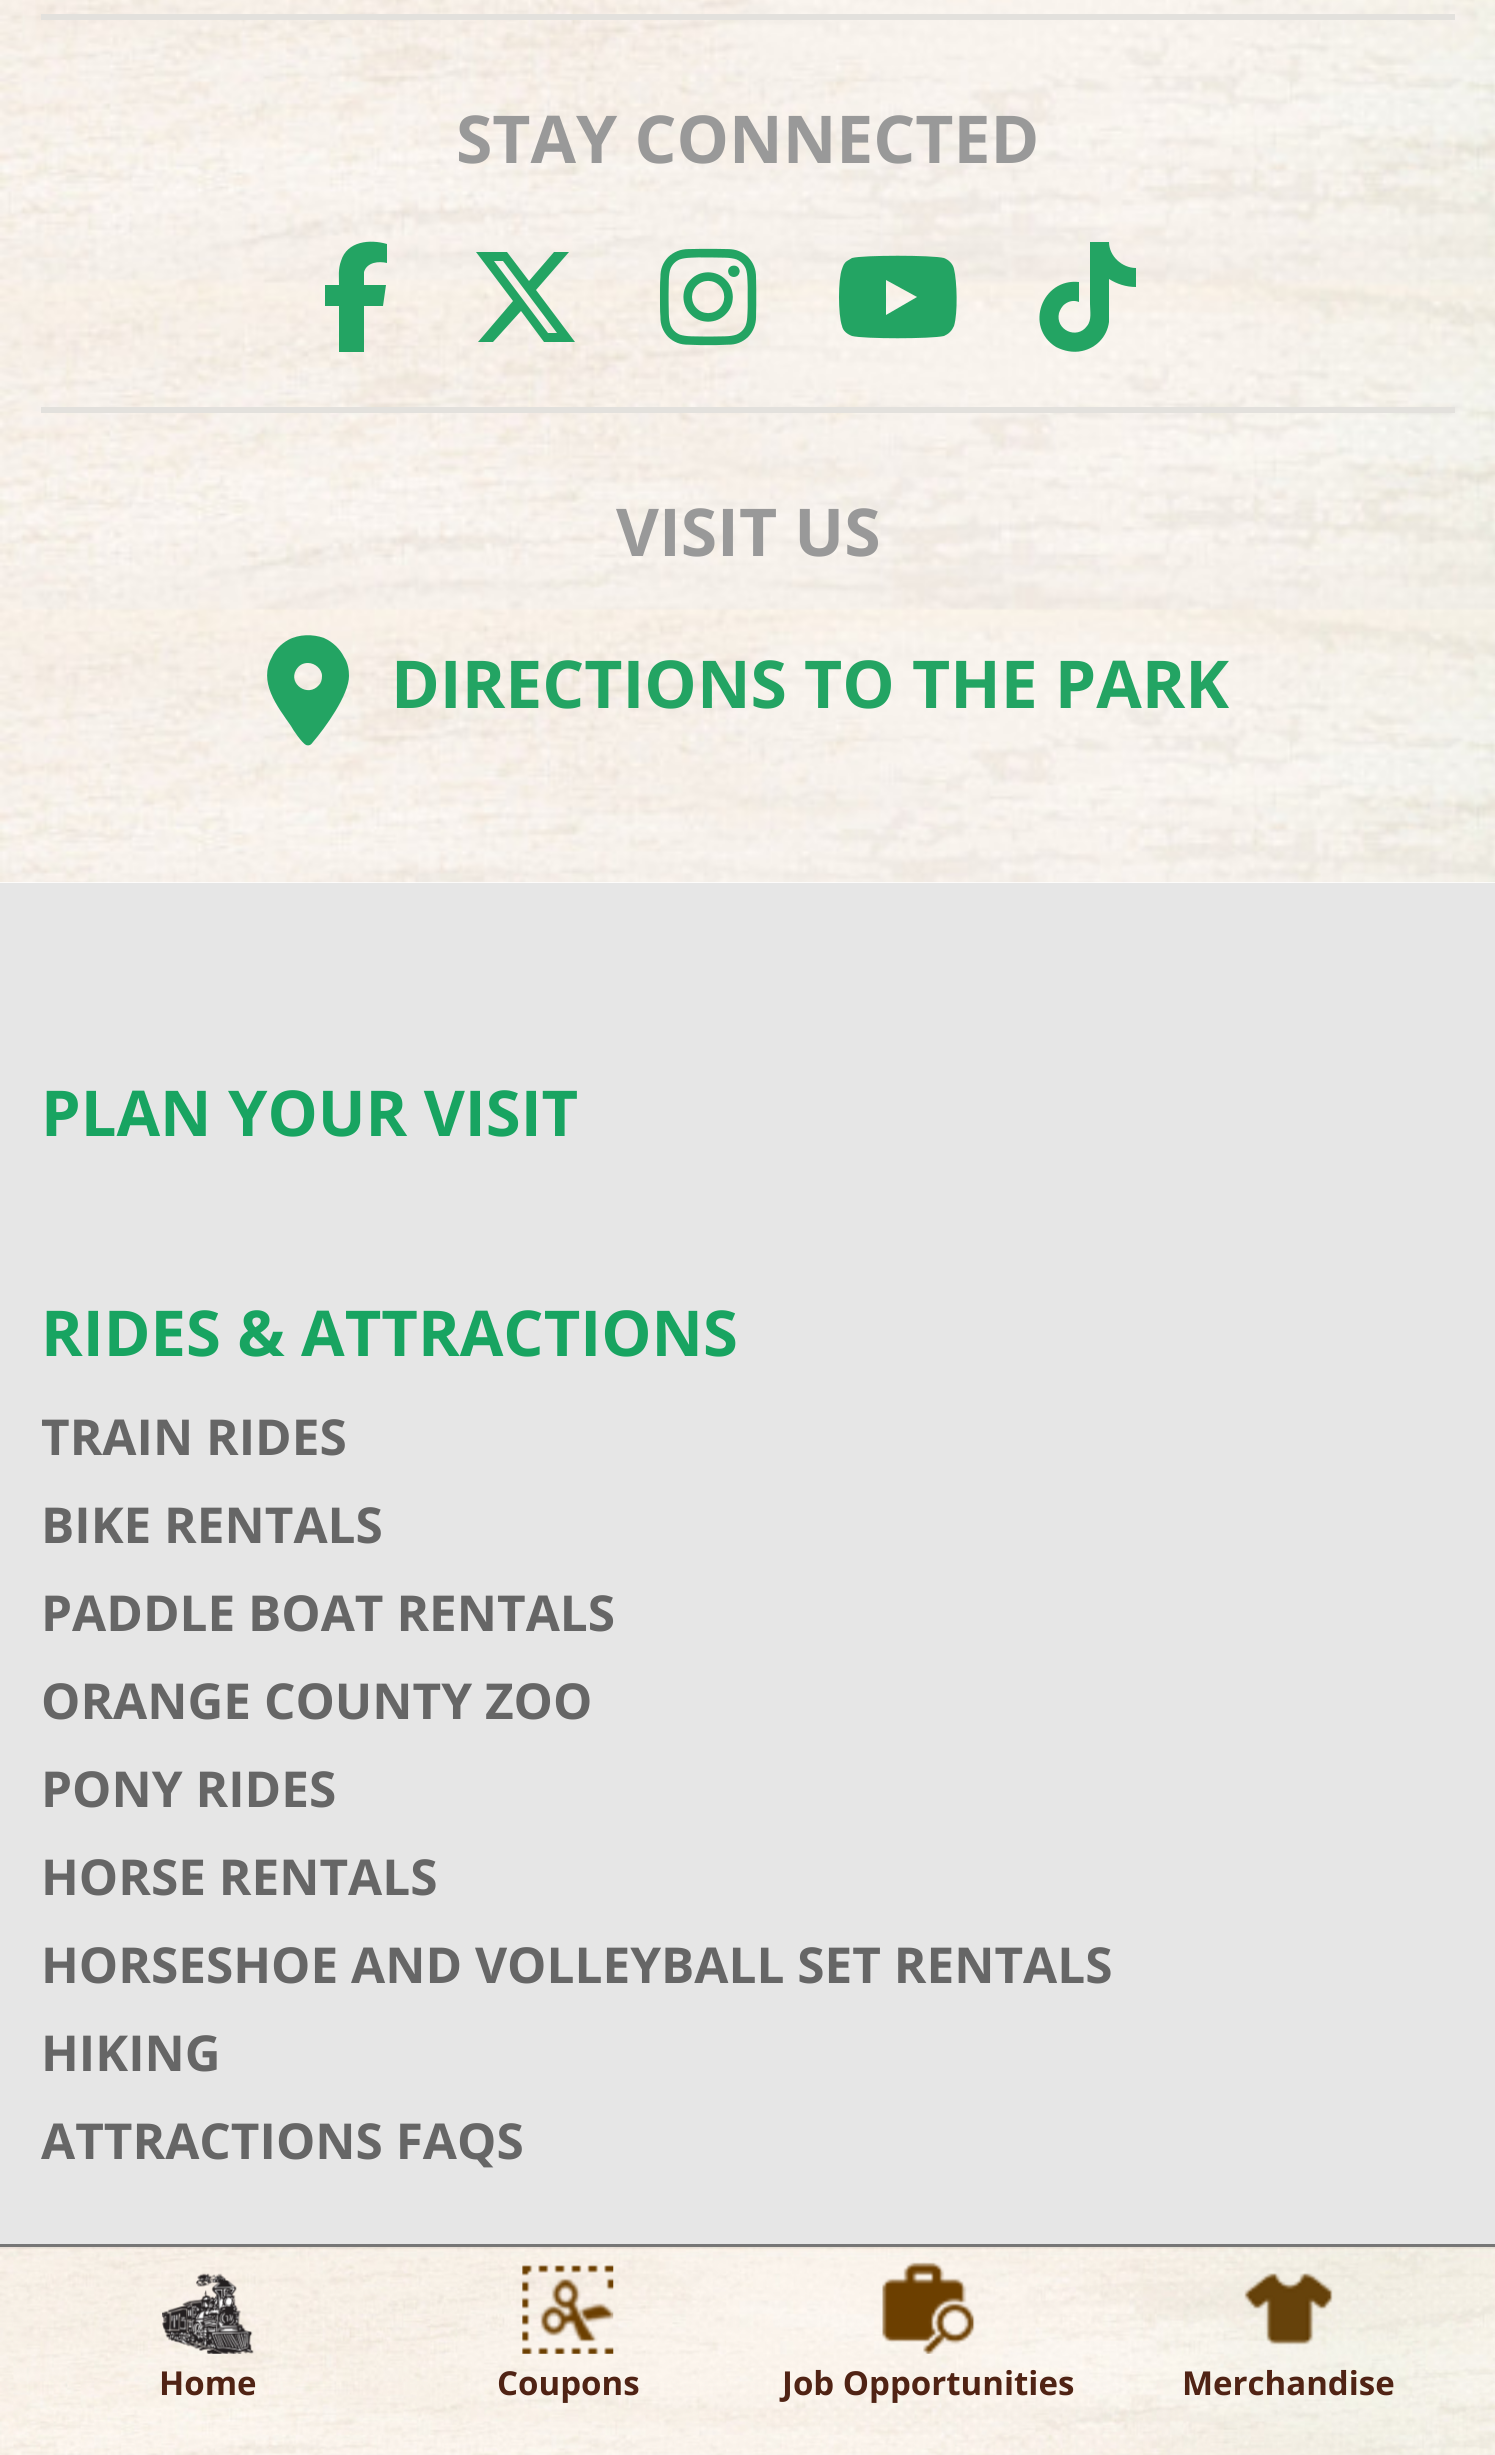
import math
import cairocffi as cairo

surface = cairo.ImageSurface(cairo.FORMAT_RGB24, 1495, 2455)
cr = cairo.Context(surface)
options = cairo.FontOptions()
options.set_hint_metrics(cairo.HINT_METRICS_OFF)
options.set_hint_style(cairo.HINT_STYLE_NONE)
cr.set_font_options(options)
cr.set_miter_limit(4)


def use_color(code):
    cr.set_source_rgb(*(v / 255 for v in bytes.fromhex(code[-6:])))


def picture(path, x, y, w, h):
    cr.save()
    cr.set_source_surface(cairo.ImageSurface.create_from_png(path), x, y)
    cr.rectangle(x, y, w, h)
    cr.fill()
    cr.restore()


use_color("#ffffff")
cr.paint()
picture("img1.png", 0, 0, 1495, 883)
use_color("#e3e1dd")
cr.rectangle(41, 14, 1414, 6)
cr.fill()
cr.rectangle(41, 407, 1414, 6)
cr.fill()
cr.select_font_face("Open Sans", cairo.FONT_SLANT_NORMAL, cairo.FONT_WEIGHT_BOLD)
cr.set_font_size(66)
use_color("#999999")
cr.move_to(456, 163)
cr.show_text("STAY CONNECTED")
use_color("#23a463")
cr.new_path()
cr.move_to(339, 306)
cr.line_to(339, 352)
cr.line_to(339, 306)
cr.line_to(339, 352)
cr.line_to(364, 352)
cr.line_to(364, 306)
cr.line_to(383, 306)
cr.line_to(386, 285)
cr.line_to(364, 285)
cr.line_to(364, 272)
cr.curve_to(367, 262, 379, 261, 387, 263)
cr.line_to(387, 244)
cr.curve_to(370, 239, 347, 241, 341, 261)
cr.curve_to(338, 269, 339, 277, 339, 285)
cr.line_to(325, 285)
cr.line_to(325, 306)
cr.close_path()
cr.fill()
cr.new_path()
cr.move_to(554, 252)
cr.line_to(569, 252)
cr.line_to(554, 252)
cr.line_to(569, 252)
cr.line_to(536, 290)
cr.line_to(575, 342)
cr.line_to(544, 342)
cr.line_to(521, 311)
cr.line_to(493, 342)
cr.line_to(478, 342)
cr.line_to(513, 301)
cr.line_to(476, 252)
cr.line_to(507, 252)
cr.line_to(529, 281)
cr.close_path()
cr.move_to(548, 333)
cr.line_to(557, 333)
cr.line_to(548, 333)
cr.line_to(557, 333)
cr.line_to(503, 261)
cr.line_to(494, 261)
cr.close_path()
cr.fill()
picture("img2.png", 660, 248, 97, 98)
cr.new_path()
cr.move_to(954, 269)
cr.curve_to(953, 264, 949, 260, 944, 258)
cr.curve_to(932, 255, 863, 255, 852, 258)
cr.line_to(847, 261)
cr.curve_to(844, 263, 843, 266, 842, 269)
cr.curve_to(838, 279, 838, 315, 842, 326)
cr.curve_to(843, 331, 847, 334, 852, 336)
cr.curve_to(864, 339, 931, 339, 944, 336)
cr.curve_to(946, 335, 948, 334, 950, 332)
cr.curve_to(952, 330, 953, 328, 954, 326)
cr.curve_to(958, 313, 957, 281, 954, 269)
cr.close_path()
cr.move_to(886, 315)
cr.line_to(886, 280)
cr.line_to(886, 315)
cr.line_to(886, 280)
cr.line_to(917, 297)
cr.close_path()
cr.fill()
cr.new_path()
cr.move_to(1136, 287)
cr.curve_to(1126, 287, 1117, 284, 1109, 279)
cr.line_to(1109, 322)
cr.curve_to(1107, 337, 1096, 348, 1082, 351)
cr.curve_to(1073, 353, 1064, 351, 1056, 347)
cr.curve_to(1024, 327, 1042, 278, 1079, 282)
cr.line_to(1079, 302)
cr.curve_to(1074, 300, 1069, 301, 1065, 304)
cr.curve_to(1062, 306, 1060, 310, 1059, 313)
cr.curve_to(1055, 330, 1077, 340, 1087, 326)
cr.curve_to(1092, 320, 1090, 311, 1090, 304)
cr.line_to(1090, 242)
cr.line_to(1109, 242)
cr.curve_to(1109, 256, 1122, 268, 1136, 268)
cr.close_path()
cr.fill()
use_color("#999999")
cr.move_to(616, 556)
cr.show_text("VISIT US")
use_color("#23a463")
cr.new_path()
cr.move_to(313, 742)
cr.curve_to(325, 728, 349, 695, 349, 676)
cr.curve_to(349, 670, 348, 663, 344, 657)
cr.curve_to(340, 649, 333, 642, 324, 638)
cr.curve_to(313, 634, 299, 634, 288, 640)
cr.curve_to(281, 644, 275, 650, 272, 657)
cr.curve_to(258, 682, 277, 706, 291, 726)
cr.curve_to(293, 730, 302, 743, 306, 745)
cr.curve_to(309, 746, 311, 745, 313, 742)
cr.close_path()
cr.move_to(308, 663)
cr.curve_to(315, 663, 322, 669, 322, 676)
cr.curve_to(322, 680, 321, 683, 319, 685)
cr.curve_to(308, 698, 288, 684, 296, 670)
cr.curve_to(299, 665, 303, 663, 308, 663)
cr.close_path()
cr.fill()
cr.move_to(391, 708)
cr.show_text("DIRECTIONS TO THE PARK")
use_color("#e6e6e6")
cr.rectangle(0, 883, 1495, 1361)
cr.fill()
cr.set_font_size(63.25)
use_color("#18a461")
cr.move_to(41, 1136)
cr.show_text("PLAN YOUR VISIT")
cr.move_to(41, 1356)
cr.show_text("RIDES & ATTRACTIONS")
cr.set_font_size(49.5)
use_color("#666666")
cr.move_to(41, 1455)
cr.show_text("TRAIN RIDES")
cr.move_to(41, 1543)
cr.show_text("BIKE RENTALS")
cr.move_to(41, 1631)
cr.show_text("PADDLE BOAT RENTALS")
cr.move_to(41, 1719)
cr.show_text("ORANGE COUNTY ZOO")
cr.move_to(41, 1807)
cr.show_text("PONY RIDES")
cr.move_to(41, 1895)
cr.show_text("HORSE RENTALS")
cr.move_to(41, 1983)
cr.show_text("HORSESHOE AND VOLLEYBALL SET RENTALS")
cr.move_to(41, 2071)
cr.show_text("HIKING")
cr.move_to(41, 2159)
cr.show_text("ATTRACTIONS FAQS")
picture("img3.png", 0, 2247, 1495, 208)
use_color("#767676")
cr.rectangle(0, 2244, 1495, 3)
cr.fill()
picture("img4.png", 162, 2273, 92, 81)
cr.set_font_size(33)
use_color("#502314")
cr.move_to(159, 2395)
cr.show_text("Home")
picture("img5.png", 522, 2265, 92, 89)
cr.move_to(497, 2395)
cr.show_text("Coupons")
picture("img6.png", 882, 2262, 93, 92)
cr.move_to(782, 2395)
cr.show_text("Job Opportunities")
picture("img7.png", 1244, 2273, 89, 72)
cr.move_to(1182, 2395)
cr.show_text("Merchandise")
surface.write_to_png("result.png")
